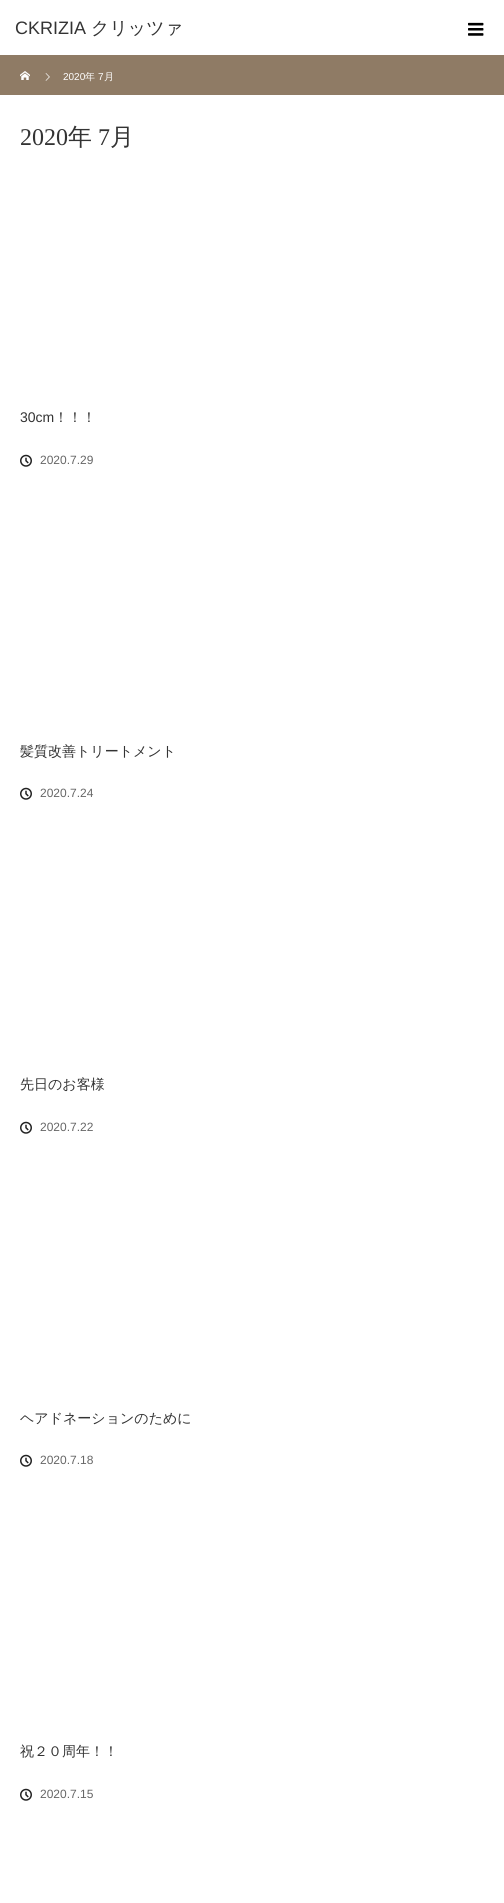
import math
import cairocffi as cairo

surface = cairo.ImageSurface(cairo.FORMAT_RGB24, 504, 1903)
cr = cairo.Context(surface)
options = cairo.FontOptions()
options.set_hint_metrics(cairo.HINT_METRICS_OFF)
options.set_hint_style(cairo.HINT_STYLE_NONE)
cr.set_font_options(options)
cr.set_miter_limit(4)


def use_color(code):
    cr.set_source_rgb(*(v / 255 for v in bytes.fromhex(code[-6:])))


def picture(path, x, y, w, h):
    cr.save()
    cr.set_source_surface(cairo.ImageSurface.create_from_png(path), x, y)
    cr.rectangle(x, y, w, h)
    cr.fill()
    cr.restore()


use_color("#ffffff")
cr.paint()
cr.select_font_face("Liberation Sans")
cr.set_font_size(18)
use_color("#333333")
cr.move_to(15, 34)
cr.show_text("CKRIZIA")
cr.select_font_face("WenQuanYi Zen Hei Medium")
cr.move_to(91, 34)
cr.show_text("クリッツァ")
picture("img1.png", 468, 22, 16, 14)
use_color("#8f7b65")
cr.rectangle(0, 55, 504, 40)
cr.fill()
picture("img2.png", 20, 71, 10, 9)
picture("img3.png", 45, 73, 5, 8)
cr.select_font_face("Liberation Sans")
cr.set_font_size(10)
use_color("#ffffff")
cr.move_to(63, 80)
cr.show_text("2020")
cr.select_font_face("WenQuanYi Zen Hei Medium")
cr.move_to(85, 80)
cr.show_text("年")
cr.select_font_face("Liberation Sans")
cr.move_to(98, 80)
cr.show_text("7")
cr.select_font_face("WenQuanYi Zen Hei Medium")
cr.move_to(104, 80)
cr.show_text("月")
cr.select_font_face("Liberation Serif")
cr.set_font_size(24)
use_color("#333333")
cr.move_to(20, 145)
cr.show_text("2020")
cr.select_font_face("WenQuanYi Zen Hei Medium")
cr.move_to(68, 145)
cr.show_text("年")
cr.select_font_face("Liberation Serif")
cr.move_to(98, 145)
cr.show_text("7")
cr.select_font_face("WenQuanYi Zen Hei Medium")
cr.move_to(110, 145)
cr.show_text("月")
cr.select_font_face("Liberation Sans")
cr.set_font_size(14)
cr.move_to(20, 422)
cr.show_text("30cm")
cr.select_font_face("WenQuanYi Zen Hei Medium")
cr.move_to(54, 422)
cr.show_text("！！！")
picture("img4.png", 20, 454, 12, 13)
cr.select_font_face("Liberation Sans")
cr.set_font_size(12)
use_color("#666666")
cr.move_to(40, 464)
cr.show_text("2020.7.29")
cr.select_font_face("WenQuanYi Zen Hei Medium")
cr.set_font_size(14)
use_color("#333333")
cr.move_to(20, 756)
cr.show_text("髪質改善トリートメント")
picture("img4.png", 20, 787, 12, 13)
cr.select_font_face("Liberation Sans")
cr.set_font_size(12)
use_color("#666666")
cr.move_to(40, 797)
cr.show_text("2020.7.24")
cr.select_font_face("WenQuanYi Zen Hei Medium")
cr.set_font_size(14)
use_color("#333333")
cr.move_to(20, 1089)
cr.show_text("先日のお客様")
picture("img4.png", 20, 1121, 12, 13)
cr.select_font_face("Liberation Sans")
cr.set_font_size(12)
use_color("#666666")
cr.move_to(40, 1131)
cr.show_text("2020.7.22")
cr.select_font_face("WenQuanYi Zen Hei Medium")
cr.set_font_size(14)
use_color("#333333")
cr.move_to(20, 1423)
cr.show_text("ヘアドネーションのために")
picture("img4.png", 20, 1454, 12, 13)
cr.select_font_face("Liberation Sans")
cr.set_font_size(12)
use_color("#666666")
cr.move_to(40, 1464)
cr.show_text("2020.7.18")
cr.select_font_face("WenQuanYi Zen Hei Medium")
cr.set_font_size(14)
use_color("#333333")
cr.move_to(20, 1756)
cr.show_text("祝２０周年！！")
picture("img4.png", 20, 1788, 12, 13)
cr.select_font_face("Liberation Sans")
cr.set_font_size(12)
use_color("#666666")
cr.move_to(40, 1798)
cr.show_text("2020.7.15")
surface.write_to_png("result.png")
